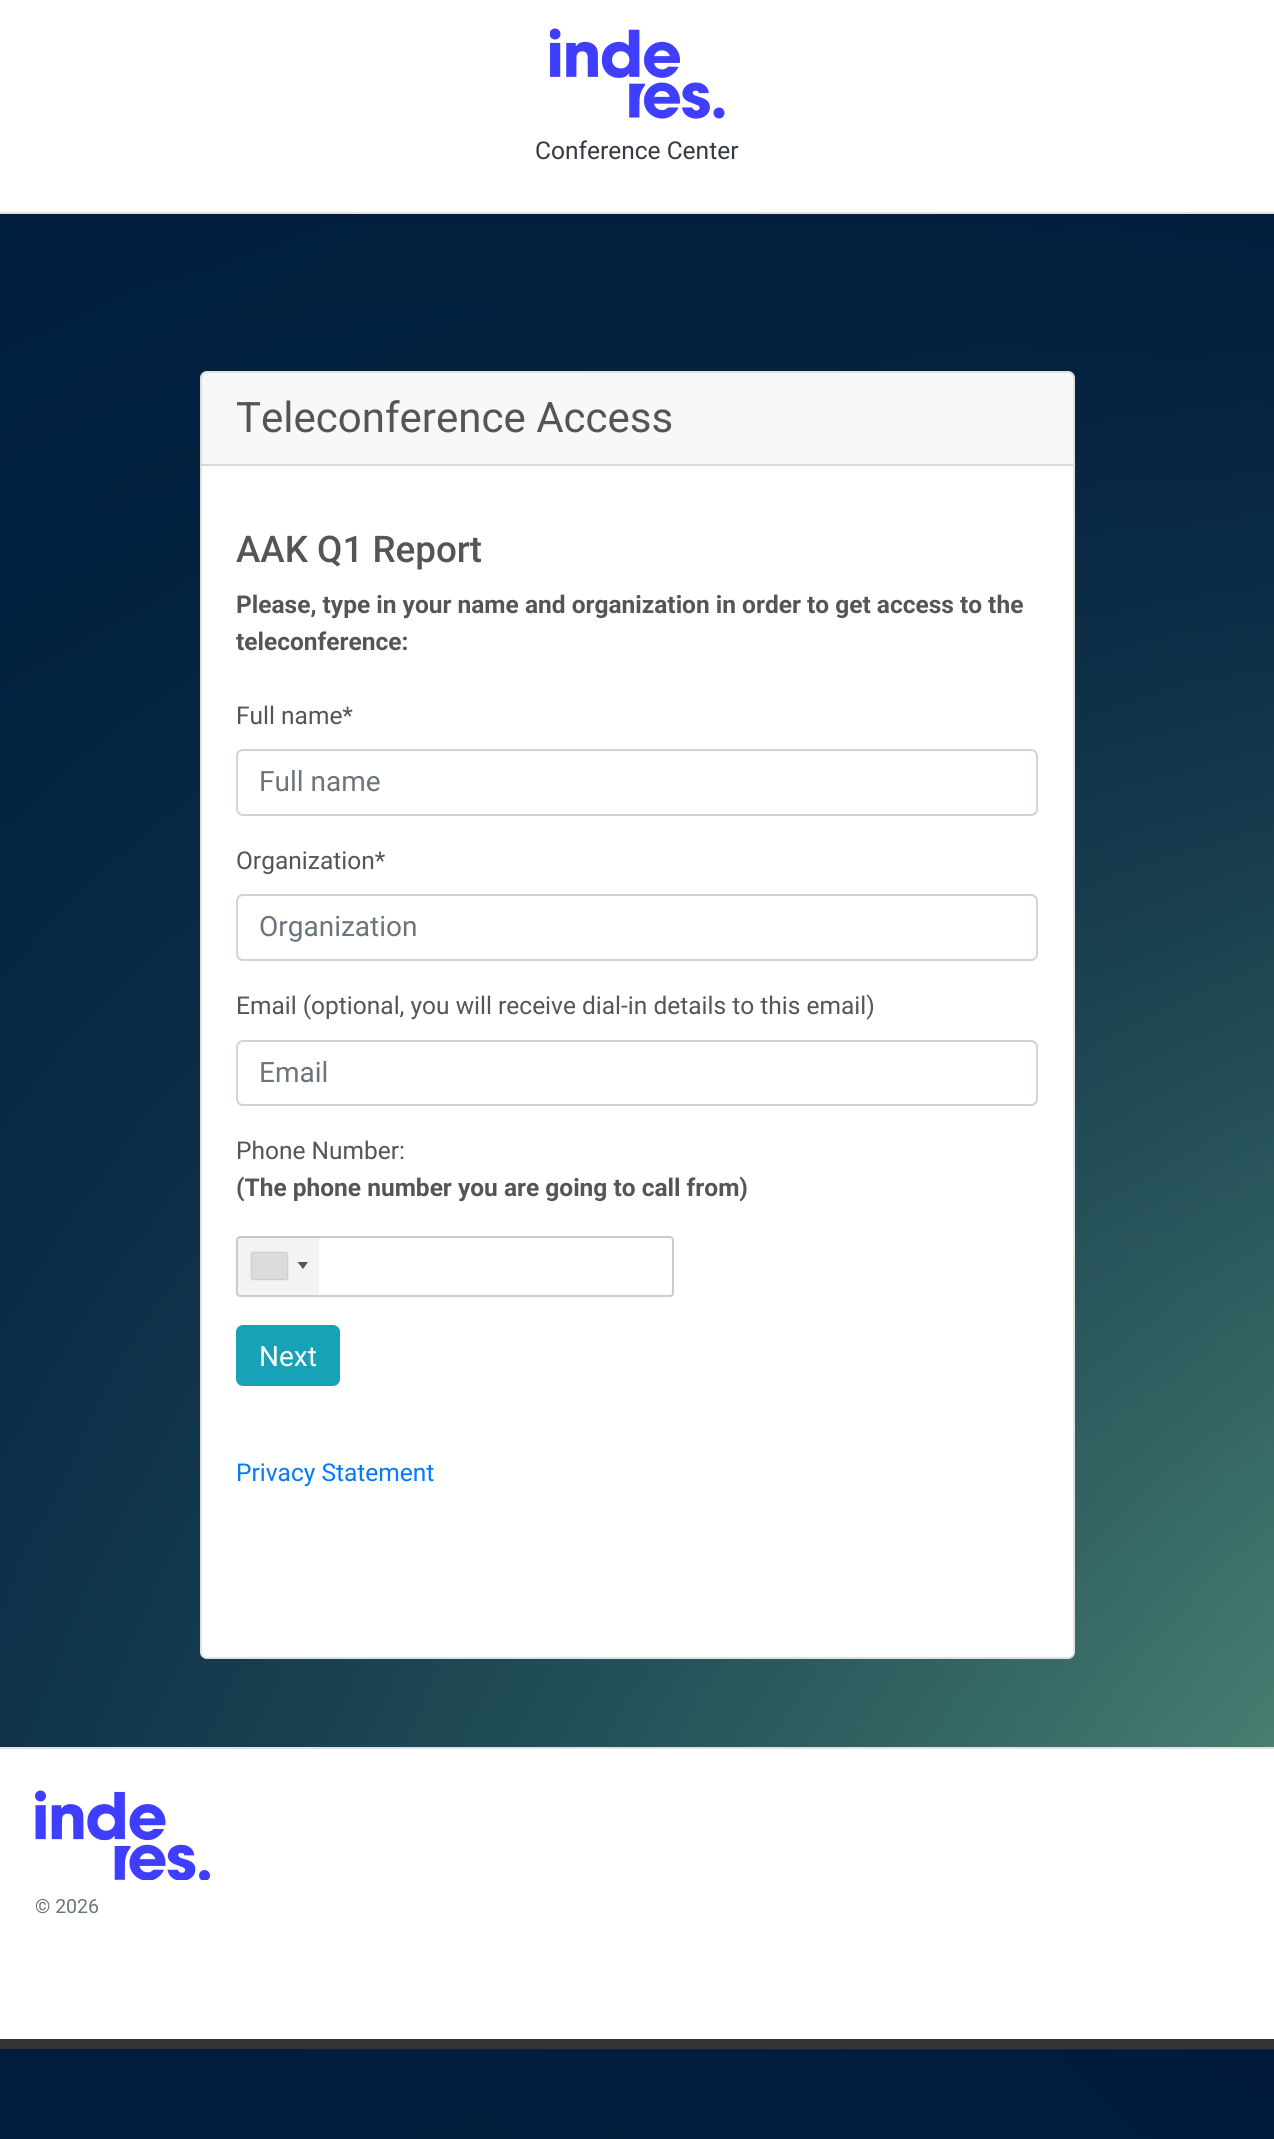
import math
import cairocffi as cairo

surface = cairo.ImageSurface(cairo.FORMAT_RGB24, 1274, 2139)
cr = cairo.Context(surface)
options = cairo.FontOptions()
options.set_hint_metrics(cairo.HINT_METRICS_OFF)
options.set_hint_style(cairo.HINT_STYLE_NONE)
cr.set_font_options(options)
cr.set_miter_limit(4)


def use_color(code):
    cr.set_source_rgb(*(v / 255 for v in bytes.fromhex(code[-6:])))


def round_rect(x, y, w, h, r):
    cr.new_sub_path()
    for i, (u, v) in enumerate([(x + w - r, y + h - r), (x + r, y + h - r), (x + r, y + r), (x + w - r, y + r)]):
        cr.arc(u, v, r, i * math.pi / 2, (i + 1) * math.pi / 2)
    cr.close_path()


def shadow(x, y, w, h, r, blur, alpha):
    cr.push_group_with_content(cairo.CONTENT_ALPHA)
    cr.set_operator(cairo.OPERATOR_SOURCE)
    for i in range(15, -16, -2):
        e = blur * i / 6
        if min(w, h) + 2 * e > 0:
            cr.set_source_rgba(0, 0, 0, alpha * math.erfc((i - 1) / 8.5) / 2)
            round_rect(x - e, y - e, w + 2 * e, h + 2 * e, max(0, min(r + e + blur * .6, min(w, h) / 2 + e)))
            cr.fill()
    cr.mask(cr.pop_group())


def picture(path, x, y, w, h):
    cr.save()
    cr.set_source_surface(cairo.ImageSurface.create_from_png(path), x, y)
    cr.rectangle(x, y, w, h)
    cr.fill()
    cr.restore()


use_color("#ffffff")
cr.paint()
picture("img1.png", 0, 214, 1274, 1925)
use_color("#000000")
shadow(0, 4, 1274, 213, 0, 3.5, 0.07)
use_color("#ffffff")
cr.rectangle(0, 0, 1274, 212)
cr.fill()
use_color("#dee2e6")
cr.rectangle(0, 212, 1274, 2)
cr.fill()
picture("img2.png", 550, 28, 175, 91)
cr.select_font_face("Roboto")
cr.set_font_size(24.5)
use_color("#343a40")
cr.move_to(535, 159)
cr.show_text("Conference Center")
use_color("#ffffff")
round_rect(200, 371, 875, 1288, 7)
cr.fill()
round_rect(201, 372, 873, 1286, 6)
cr.set_source_rgba(0, 0, 0, 0.12)
cr.stroke()
cr.set_source_rgba(0, 0, 0, 0.03)
cr.rectangle(201, 373, 872, 93)
cr.fill()
cr.set_source_rgba(0, 0, 0, 0.12)
cr.rectangle(201, 464, 872, 2)
cr.fill()
cr.set_font_size(42)
use_color("#555555")
cr.move_to(236, 432)
cr.show_text("Teleconference Access")
cr.select_font_face("Roboto Medium")
cr.set_font_size(36.75)
cr.move_to(236, 562)
cr.show_text("AAK Q1 Report")
cr.select_font_face("Roboto", cairo.FONT_SLANT_NORMAL, cairo.FONT_WEIGHT_BOLD)
cr.set_font_size(24.5)
cr.move_to(236, 613)
cr.show_text("Please, type in your name and organization in order to get access to the")
cr.move_to(236, 650)
cr.show_text("teleconference:")
cr.select_font_face("Roboto")
cr.move_to(236, 724)
cr.show_text("Full name*")
round_rect(237, 750, 800, 65, 6)
use_color("#ced4da")
cr.stroke()
cr.set_font_size(28)
use_color("#6c757d")
cr.move_to(259, 791)
cr.show_text("Full name")
cr.set_font_size(24.5)
use_color("#555555")
cr.move_to(236, 869)
cr.show_text("Organization*")
round_rect(237, 895, 800, 65, 6)
use_color("#ced4da")
cr.stroke()
cr.set_font_size(28)
use_color("#6c757d")
cr.move_to(259, 936)
cr.show_text("Organization")
cr.set_font_size(24.5)
use_color("#555555")
cr.move_to(236, 1014)
cr.show_text("Email (optional, you will receive dial-in details to this email)")
round_rect(237, 1041, 800, 64, 6)
use_color("#ced4da")
cr.stroke()
cr.set_font_size(28)
use_color("#6c757d")
cr.move_to(259, 1082)
cr.show_text("Email")
cr.set_font_size(24.5)
use_color("#555555")
cr.move_to(236, 1159)
cr.show_text("Phone Number:")
cr.select_font_face("Roboto", cairo.FONT_SLANT_NORMAL, cairo.FONT_WEIGHT_BOLD)
cr.move_to(236, 1196)
cr.show_text("(The phone number you are going to call from)")
round_rect(237, 1237, 436, 59, 3)
use_color("#cccccc")
cr.stroke()
cr.set_source_rgba(0, 0, 0, 0.05)
cr.rectangle(238, 1237, 81, 58)
cr.fill()
use_color("#888888")
shadow(252, 1253, 35, 26, 0, 1, 1)
use_color("#dbdbdb")
cr.rectangle(252, 1253, 35, 26)
cr.fill()
use_color("#555555")
cr.new_path()
cr.move_to(297.5, 1262)
cr.line_to(308, 1262)
cr.line_to(303, 1269)
cr.close_path()
cr.fill()
use_color("#17a2b8")
round_rect(237, 1326, 102, 59, 6)
cr.fill_preserve()
cr.stroke()
cr.select_font_face("Roboto")
cr.set_font_size(28)
use_color("#ffffff")
cr.move_to(259, 1366)
cr.show_text("Next")
cr.set_font_size(24.5)
use_color("#007bff")
cr.move_to(236, 1481)
cr.show_text("Privacy Statement")
use_color("#ffffff")
cr.rectangle(0, 1749, 1274, 290)
cr.fill()
use_color("#dee2e6")
cr.rectangle(0, 1747, 1274, 2)
cr.fill()
use_color("#333333")
cr.rectangle(0, 2039, 1274, 10)
cr.fill()
picture("img3.png", 35, 1790, 175, 90)
cr.set_font_size(19.5)
use_color("#6c757d")
cr.move_to(35, 1913)
cr.show_text("© 2026")
surface.write_to_png("result.png")
